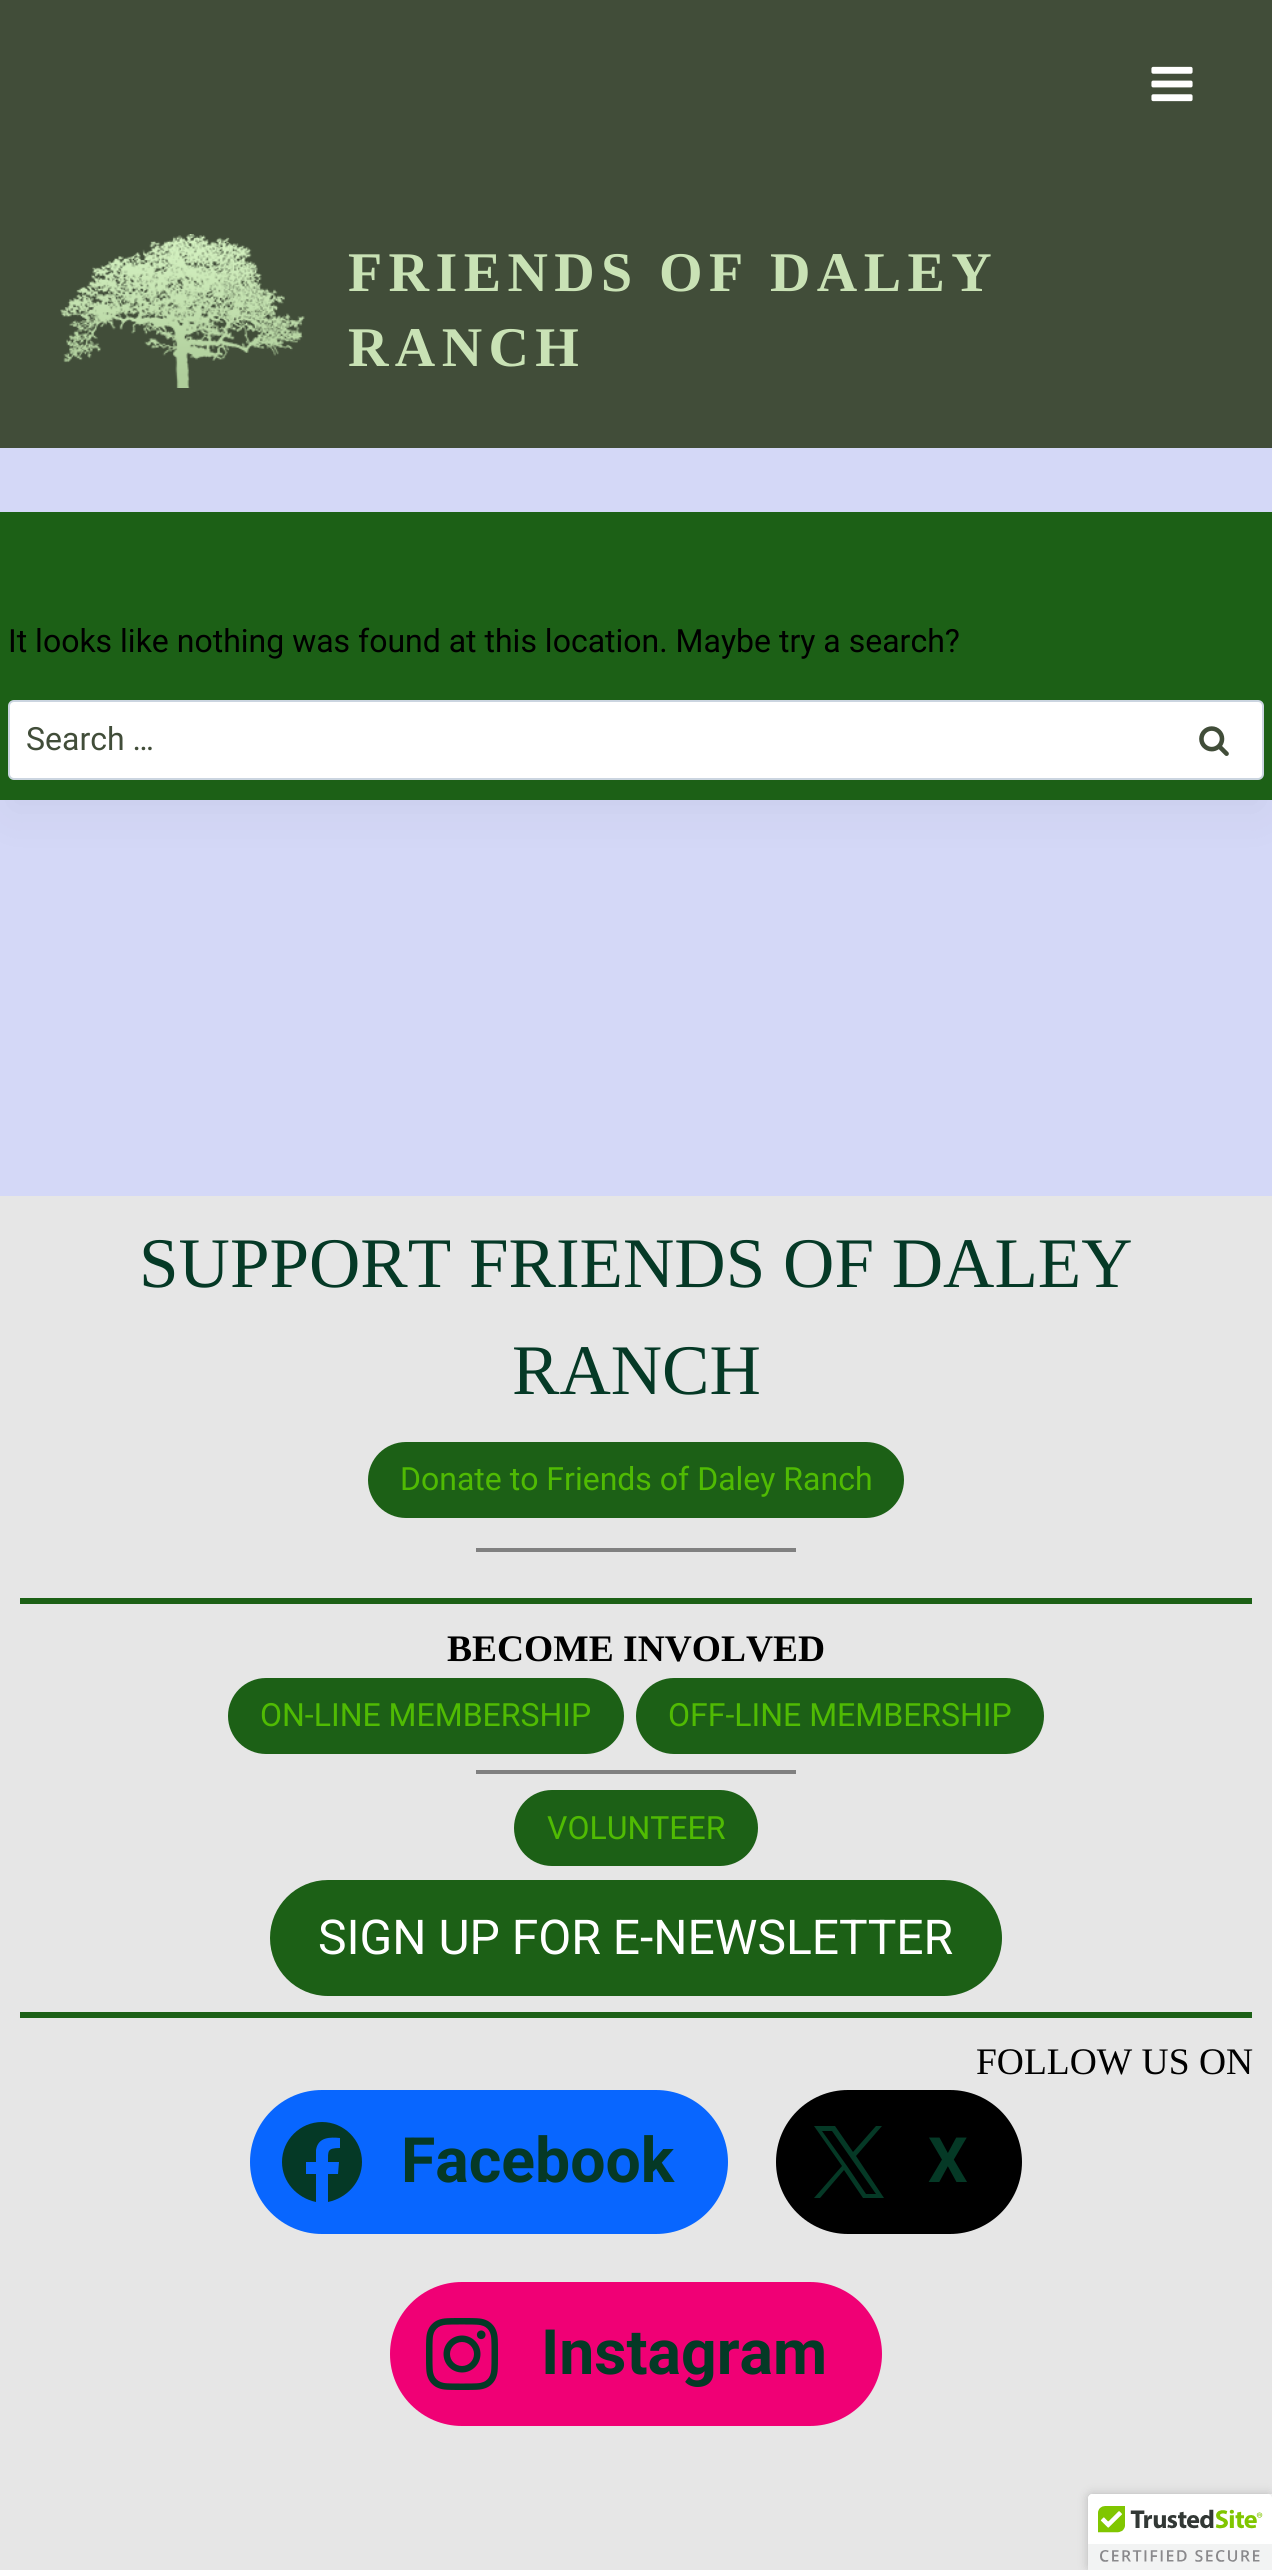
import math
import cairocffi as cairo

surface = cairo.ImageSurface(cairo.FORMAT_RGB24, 1272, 2570)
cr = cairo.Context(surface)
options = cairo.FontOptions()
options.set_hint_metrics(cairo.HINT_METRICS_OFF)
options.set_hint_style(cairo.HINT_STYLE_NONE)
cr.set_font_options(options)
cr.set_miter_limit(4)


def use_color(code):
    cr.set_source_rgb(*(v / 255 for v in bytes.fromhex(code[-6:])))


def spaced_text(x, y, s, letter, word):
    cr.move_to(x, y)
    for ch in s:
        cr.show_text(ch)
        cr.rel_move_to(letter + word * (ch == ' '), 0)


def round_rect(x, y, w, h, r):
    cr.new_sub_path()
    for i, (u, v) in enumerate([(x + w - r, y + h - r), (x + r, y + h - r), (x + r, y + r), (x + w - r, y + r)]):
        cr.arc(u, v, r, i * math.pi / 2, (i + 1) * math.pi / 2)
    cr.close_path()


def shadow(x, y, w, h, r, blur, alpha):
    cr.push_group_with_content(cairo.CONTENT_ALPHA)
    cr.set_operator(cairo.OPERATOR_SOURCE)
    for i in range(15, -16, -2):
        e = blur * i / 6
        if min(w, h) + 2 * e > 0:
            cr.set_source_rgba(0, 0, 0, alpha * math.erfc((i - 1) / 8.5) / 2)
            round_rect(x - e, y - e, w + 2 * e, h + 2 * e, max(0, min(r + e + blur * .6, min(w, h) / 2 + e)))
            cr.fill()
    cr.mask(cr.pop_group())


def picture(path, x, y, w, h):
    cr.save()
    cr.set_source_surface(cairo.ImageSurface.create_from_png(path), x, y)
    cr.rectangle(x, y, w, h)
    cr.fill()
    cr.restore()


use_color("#d4d8f7")
cr.paint()
use_color("#414d39")
cr.rectangle(0, 0, 1272, 448)
cr.fill()
picture("img1.png", 1151, 66, 42, 36)
picture("img2.png", 60, 234, 245, 154)
cr.select_font_face("Liberation Serif", cairo.FONT_SLANT_NORMAL, cairo.FONT_WEIGHT_BOLD)
cr.set_font_size(56)
use_color("#c9e2b5")
spaced_text(348, 291, "FRIENDS OF DALEY", 6.4, 0)
spaced_text(348, 366, "RANCH", 6.4, 0)
use_color("#000000")
shadow(8, 562, 1256, 248, 0, 25, 0.05)
use_color("#1c6016")
cr.rectangle(0, 512, 1272, 288)
cr.fill()
cr.select_font_face("Roboto")
cr.set_font_size(32)
use_color("#000000")
cr.move_to(8, 652)
cr.show_text("It looks like nothing was found at this location. Maybe try a search?")
use_color("#ffffff")
round_rect(9, 701, 1254, 78, 5)
cr.fill_preserve()
use_color("#cbd5e0")
cr.stroke()
use_color("#414d39")
cr.move_to(26, 750)
cr.show_text("Search …")
picture("img3.png", 1199, 726, 30, 30)
use_color("#e6e6e6")
cr.rectangle(0, 1196, 1272, 1374)
cr.fill()
cr.select_font_face("Liberation Serif")
cr.set_font_size(71.1)
use_color("#053926")
cr.move_to(139, 1287)
cr.show_text("SUPPORT FRIENDS OF DALEY")
cr.move_to(512, 1394)
cr.show_text("RANCH")
use_color("#1c6016")
round_rect(368, 1442, 536, 76, 38)
cr.fill()
cr.select_font_face("Roboto")
cr.set_font_size(32)
use_color("#50bb03")
cr.move_to(400, 1490)
cr.show_text("Donate to Friends of Daley Ranch")
use_color("#808080")
cr.rectangle(476, 1548, 320, 4)
cr.fill()
use_color("#1c6016")
cr.rectangle(20, 1598, 1232, 6)
cr.fill()
cr.select_font_face("Liberation Serif", cairo.FONT_SLANT_NORMAL, cairo.FONT_WEIGHT_BOLD)
cr.set_font_size(37.5)
use_color("#000000")
cr.move_to(447, 1661)
cr.show_text("BECOME INVOLVED")
use_color("#1c6016")
round_rect(228, 1678, 396, 76, 38)
cr.fill()
cr.select_font_face("Roboto")
cr.set_font_size(32)
use_color("#50bb03")
cr.move_to(260, 1726)
cr.show_text("ON-LINE MEMBERSHIP")
use_color("#1c6016")
round_rect(636, 1678, 408, 76, 38)
cr.fill()
use_color("#50bb03")
cr.move_to(668, 1726)
cr.show_text("OFF-LINE MEMBERSHIP")
use_color("#808080")
cr.rectangle(476, 1770, 320, 4)
cr.fill()
use_color("#1c6016")
round_rect(514, 1790, 244, 76, 38)
cr.fill()
use_color("#50bb03")
cr.move_to(547, 1839)
cr.show_text("VOLUNTEER")
use_color("#1c6016")
round_rect(270, 1880, 732, 116, 58)
cr.fill()
cr.set_font_size(48)
use_color("#ffffff")
cr.move_to(318, 1954)
cr.show_text("SIGN UP FOR E-NEWSLETTER")
use_color("#1c6016")
cr.rectangle(20, 2012, 1232, 6)
cr.fill()
cr.select_font_face("Liberation Serif")
cr.set_font_size(37.5)
use_color("#000000")
cr.move_to(976, 2074)
cr.show_text("FOLLOW US ON")
use_color("#0866ff")
round_rect(250, 2090, 478, 144, 72)
cr.fill()
use_color("#053926")
cr.new_path()
cr.move_to(322, 2122)
cr.curve_to(300, 2122, 282, 2140, 282, 2162)
cr.curve_to(282, 2182, 297, 2198, 316, 2202)
cr.line_to(316, 2174)
cr.line_to(306, 2174)
cr.line_to(306, 2162)
cr.line_to(316, 2162)
cr.line_to(316, 2150)
cr.curve_to(318, 2137, 330, 2137, 340, 2138)
cr.line_to(340, 2148)
cr.curve_to(327, 2148, 328, 2151, 328, 2162)
cr.line_to(339, 2162)
cr.line_to(338, 2174)
cr.line_to(328, 2174)
cr.line_to(328, 2202)
cr.curve_to(347, 2198, 362, 2182, 362, 2162)
cr.curve_to(362, 2140, 344, 2122, 322, 2122)
cr.close_path()
cr.fill()
cr.select_font_face("Roboto", cairo.FONT_SLANT_NORMAL, cairo.FONT_WEIGHT_BOLD)
cr.set_font_size(62.5)
cr.move_to(401, 2182)
cr.show_text("Facebook")
use_color("#000000")
round_rect(776, 2090, 246, 144, 72)
cr.fill()
use_color("#053926")
cr.new_path()
cr.move_to(856, 2156)
cr.line_to(882, 2126)
cr.line_to(876, 2126)
cr.line_to(853, 2152)
cr.line_to(835, 2126)
cr.line_to(814, 2126)
cr.line_to(842, 2166)
cr.line_to(814, 2198)
cr.line_to(820, 2198)
cr.line_to(844, 2170)
cr.line_to(863, 2198)
cr.line_to(884, 2198)
cr.close_path()
cr.move_to(847, 2166)
cr.line_to(822, 2131)
cr.line_to(832, 2131)
cr.line_to(876, 2194)
cr.line_to(866, 2194)
cr.close_path()
cr.fill()
cr.move_to(928, 2182)
cr.show_text("X")
use_color("#f00075")
round_rect(390, 2282, 492, 144, 72)
cr.fill()
picture("img4.png", 426, 2318, 72, 72)
use_color("#053926")
cr.move_to(541, 2374)
cr.show_text("Instagram")
use_color("#000000")
shadow(1088, 2494, 184, 76, 4, 5, 0.2)
use_color("#ffffff")
cr.new_path()
cr.move_to(1092, 2494)
cr.line_to(1272, 2494)
cr.line_to(1272, 2570)
cr.line_to(1088, 2570)
cr.line_to(1088, 2498)
cr.curve_to(1088, 2496, 1090, 2494, 1092, 2494)
cr.close_path()
cr.fill()
picture("img5.png", 1088, 2494, 184, 76)
surface.write_to_png("result.png")
